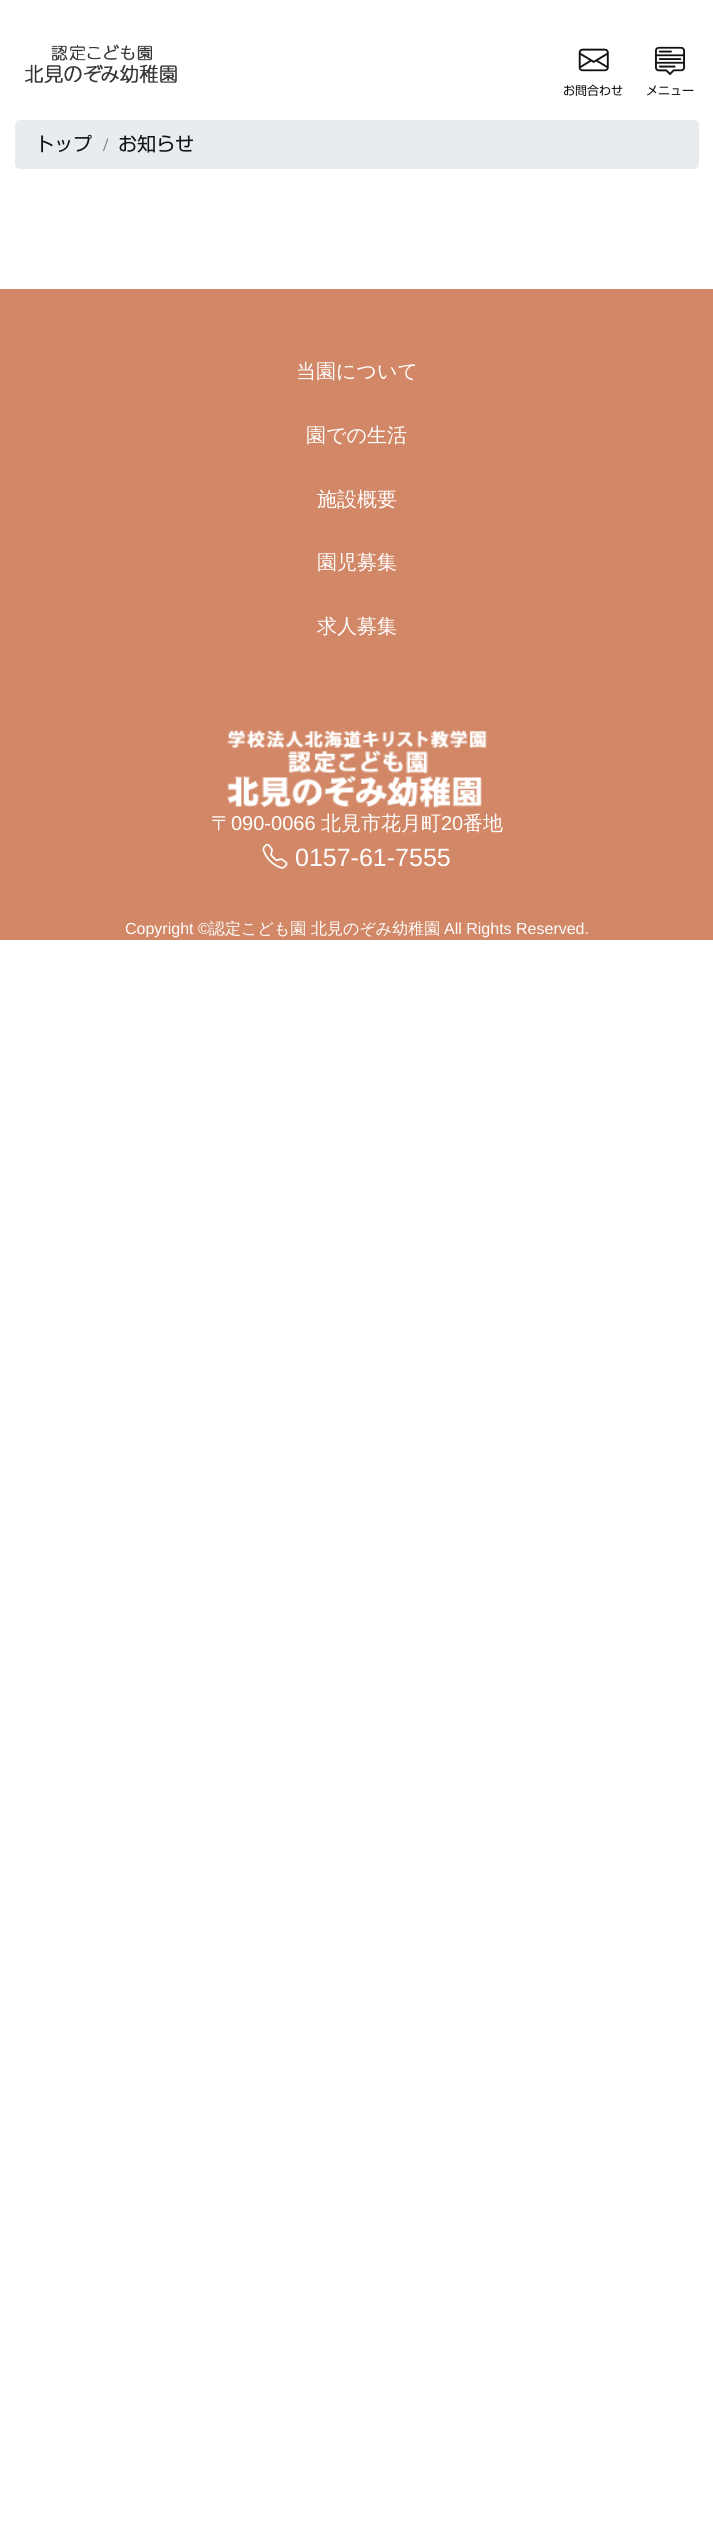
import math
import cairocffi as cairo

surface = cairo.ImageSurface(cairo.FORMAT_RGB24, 713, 2531)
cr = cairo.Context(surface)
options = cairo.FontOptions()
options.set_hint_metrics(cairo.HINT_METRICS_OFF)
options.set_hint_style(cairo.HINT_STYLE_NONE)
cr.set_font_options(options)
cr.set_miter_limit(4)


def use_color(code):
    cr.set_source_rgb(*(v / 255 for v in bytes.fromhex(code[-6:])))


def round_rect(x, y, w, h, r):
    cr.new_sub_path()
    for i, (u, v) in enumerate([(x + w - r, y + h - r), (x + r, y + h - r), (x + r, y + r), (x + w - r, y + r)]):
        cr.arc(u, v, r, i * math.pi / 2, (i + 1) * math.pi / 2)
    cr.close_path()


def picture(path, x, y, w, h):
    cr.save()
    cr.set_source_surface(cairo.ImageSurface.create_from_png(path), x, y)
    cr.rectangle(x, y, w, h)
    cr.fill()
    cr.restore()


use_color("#ffffff")
cr.paint()
picture("img1.png", 25, 44, 152, 40)
picture("img2.png", 578, 48, 31, 24)
cr.select_font_face("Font")
cr.set_font_size(12)
use_color("#111111")
cr.move_to(563, 95)
cr.show_text("お問合わせ")
picture("img3.png", 655, 46, 30, 29)
cr.move_to(646, 95)
cr.show_text("メニュー")
use_color("#e9ecef")
round_rect(15, 120, 684, 49, 5)
cr.fill()
cr.set_font_size(19)
use_color("#111111")
cr.move_to(35, 151)
cr.show_text("トップ")
cr.select_font_face("Liberation Serif")
use_color("#616162")
cr.move_to(103, 151)
cr.show_text("/")
cr.select_font_face("Font")
use_color("#111111")
cr.move_to(118, 151)
cr.show_text("お知らせ")
use_color("#d28867")
cr.rectangle(0, 289, 713, 651)
cr.fill()
cr.select_font_face("WenQuanYi Zen Hei Medium")
cr.set_font_size(20)
use_color("#ffffff")
cr.move_to(296, 378)
cr.show_text("当園について")
cr.move_to(306, 442)
cr.show_text("園での生活")
cr.move_to(317, 506)
cr.show_text("施設概要")
cr.move_to(317, 569)
cr.show_text("園児募集")
cr.move_to(317, 633)
cr.show_text("求人募集")
picture("img4.png", 227, 730, 260, 78)
cr.move_to(211, 830)
cr.show_text("〒")
cr.select_font_face("Liberation Sans")
cr.move_to(231, 830)
cr.show_text("090-0066")
cr.select_font_face("WenQuanYi Zen Hei Medium")
cr.move_to(321, 830)
cr.show_text("北見市花月町")
cr.select_font_face("Liberation Sans")
cr.move_to(441, 830)
cr.show_text("20")
cr.select_font_face("WenQuanYi Zen Hei Medium")
cr.move_to(463, 830)
cr.show_text("番地")
picture("img5.png", 262, 843, 26, 26)
cr.select_font_face("Liberation Sans")
cr.set_font_size(25)
cr.move_to(295, 866)
cr.show_text("0157-61-7555")
cr.set_font_size(16)
cr.move_to(125, 934)
cr.show_text("Copyright ©")
cr.select_font_face("WenQuanYi Zen Hei Medium")
cr.move_to(209, 934)
cr.show_text("認定こども園")
cr.move_to(311, 934)
cr.show_text("北見のぞみ幼稚園")
cr.select_font_face("Liberation Sans")
cr.move_to(444, 934)
cr.show_text("All Rights Reserved.")
surface.write_to_png("result.png")
